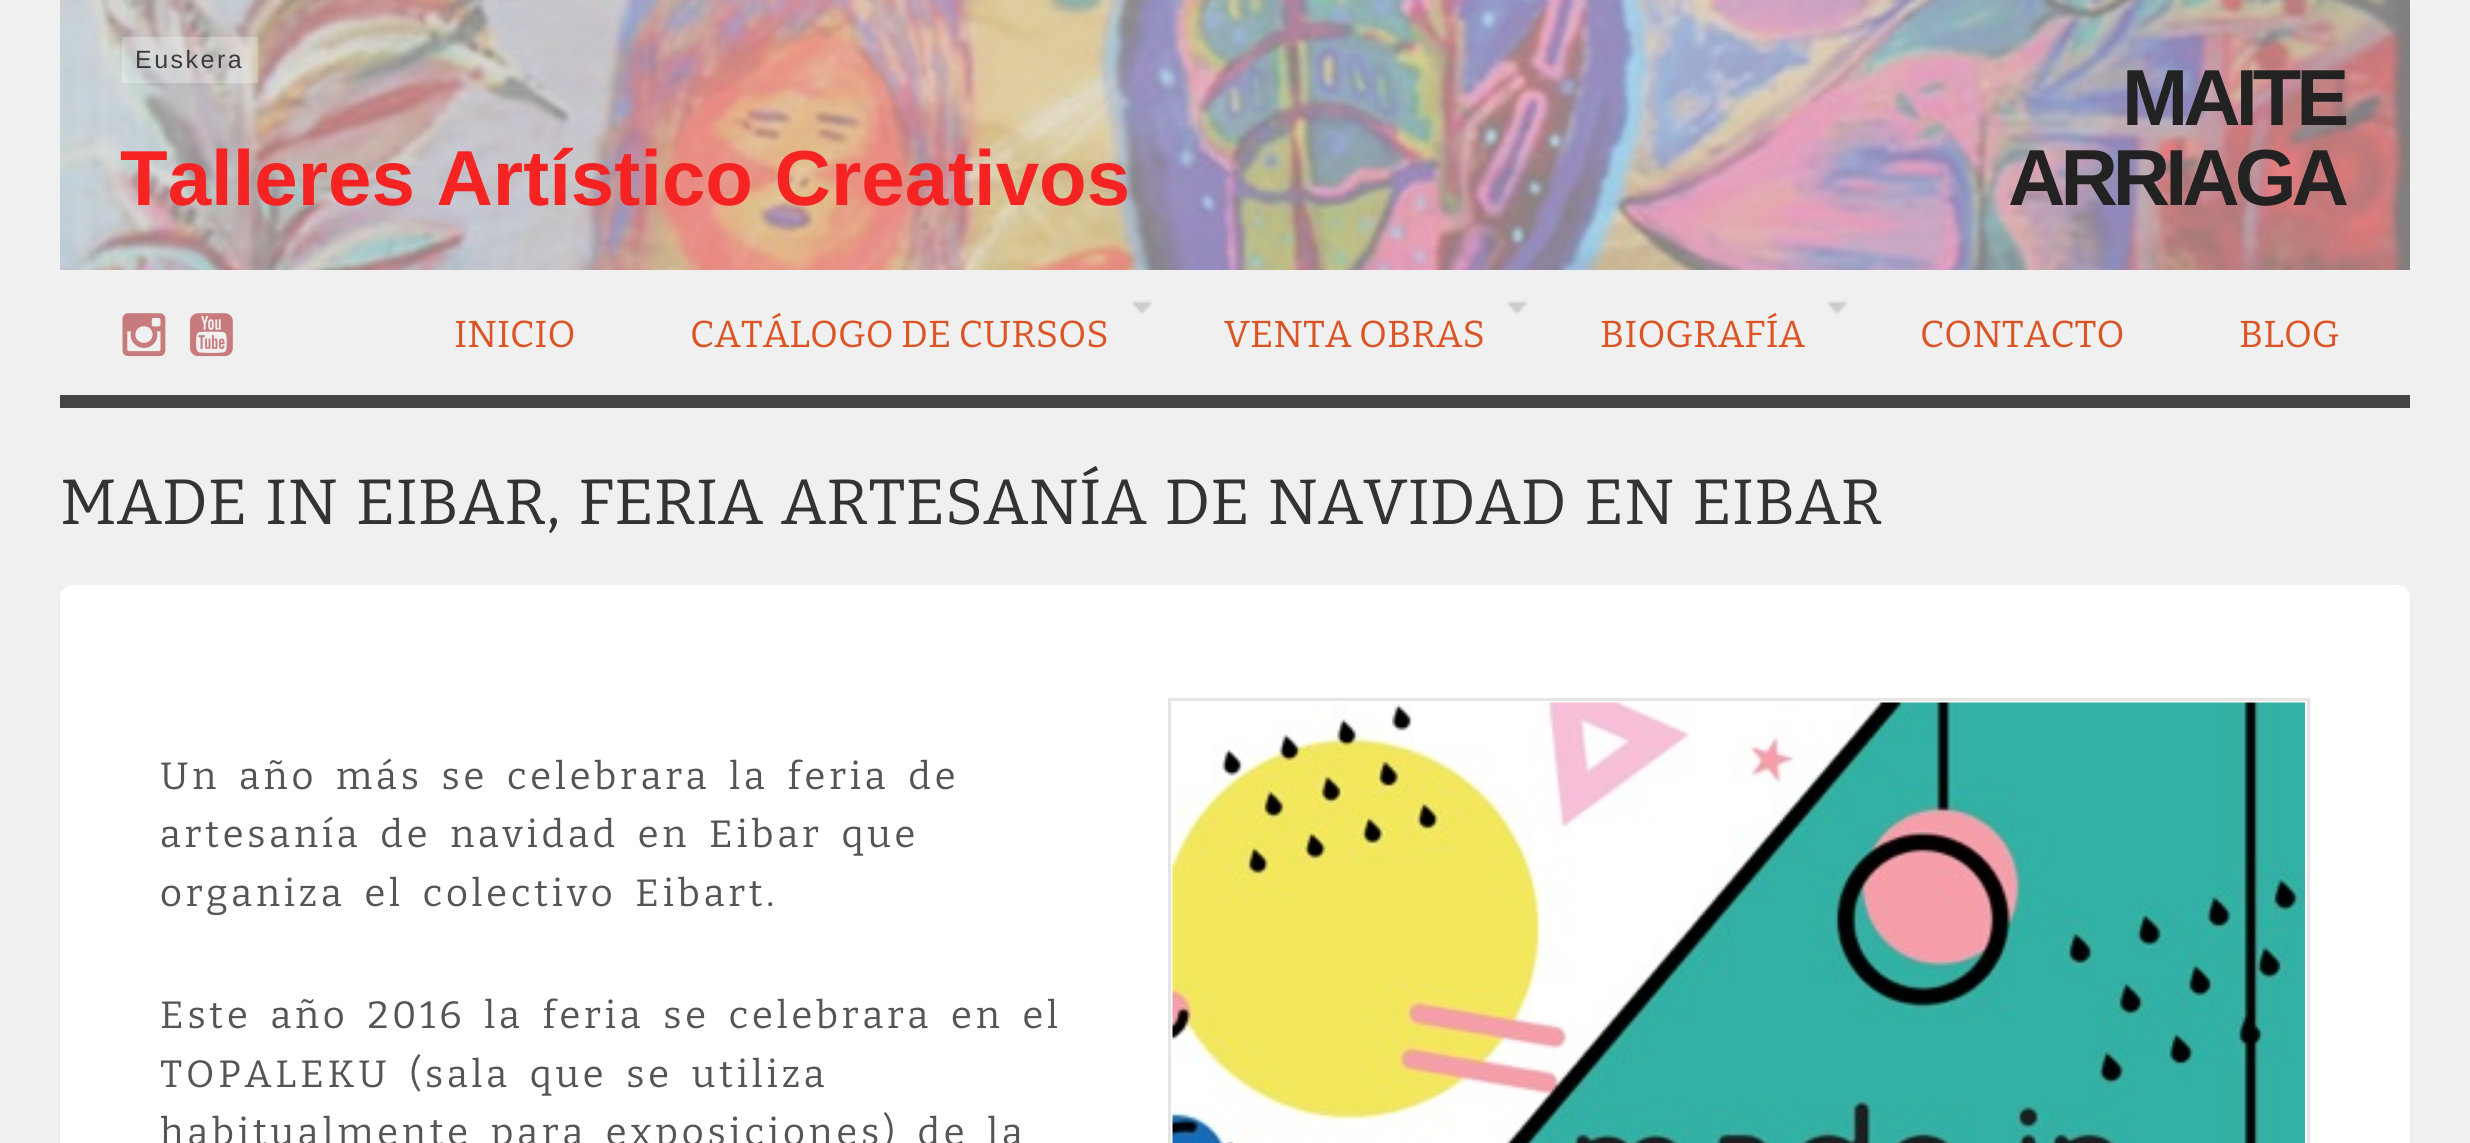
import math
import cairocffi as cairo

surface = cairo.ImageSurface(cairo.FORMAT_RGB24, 2470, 1143)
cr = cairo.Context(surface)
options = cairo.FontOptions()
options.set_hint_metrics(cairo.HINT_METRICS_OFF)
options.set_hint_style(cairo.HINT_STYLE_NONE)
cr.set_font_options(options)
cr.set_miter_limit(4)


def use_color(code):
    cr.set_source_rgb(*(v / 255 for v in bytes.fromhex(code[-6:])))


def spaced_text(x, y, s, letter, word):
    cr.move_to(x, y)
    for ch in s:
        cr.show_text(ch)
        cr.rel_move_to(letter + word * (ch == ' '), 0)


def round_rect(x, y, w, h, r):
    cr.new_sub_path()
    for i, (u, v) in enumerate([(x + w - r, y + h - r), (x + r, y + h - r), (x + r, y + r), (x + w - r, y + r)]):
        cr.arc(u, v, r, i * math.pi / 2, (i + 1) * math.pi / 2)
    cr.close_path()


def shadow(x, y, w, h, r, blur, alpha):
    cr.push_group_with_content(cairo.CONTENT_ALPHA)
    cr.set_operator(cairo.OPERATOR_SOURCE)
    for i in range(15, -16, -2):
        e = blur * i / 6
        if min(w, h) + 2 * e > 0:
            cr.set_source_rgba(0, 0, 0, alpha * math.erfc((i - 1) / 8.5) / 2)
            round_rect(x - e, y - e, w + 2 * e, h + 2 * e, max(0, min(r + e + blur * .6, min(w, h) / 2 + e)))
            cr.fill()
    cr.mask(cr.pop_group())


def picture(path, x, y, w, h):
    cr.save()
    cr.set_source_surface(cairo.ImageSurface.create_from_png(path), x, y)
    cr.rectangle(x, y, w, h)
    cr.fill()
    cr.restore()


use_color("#f0f0f0")
cr.paint()
picture("img1.png", 60, 0, 2350, 270)
cr.set_source_rgba(1, 1, 1, 0.3)
cr.rectangle(122, 37, 136, 46)
cr.fill()
cr.select_font_face("Liberation Sans")
cr.set_font_size(25)
use_color("#3b3b3b")
spaced_text(135, 68, "Euskera", 2.5, 0)
cr.select_font_face("Liberation Sans", cairo.FONT_SLANT_NORMAL, cairo.FONT_WEIGHT_BOLD)
cr.set_font_size(78)
use_color("#f52322")
cr.move_to(120, 205)
cr.show_text("Talleres Artístico Creativos")
cr.set_font_size(79.5)
use_color("#222222")
spaced_text(2122, 125, "MAITE", -5, 0)
spaced_text(2008, 205, "ARRIAGA", -5, 0)
picture("img2.png", 122, 313, 44, 44)
picture("img3.png", 190, 313, 43, 44)
cr.select_font_face("Bitter Thin")
cr.set_font_size(37.5)
use_color("#dd5424")
cr.move_to(454, 347)
cr.show_text("INICIO")
picture("img4.png", 1132, 300, 21, 15)
cr.move_to(690, 347)
cr.show_text("CATÁLOGO DE CURSOS")
picture("img5.png", 1507, 300, 21, 15)
cr.move_to(1224, 347)
cr.show_text("VENTA OBRAS")
picture("img4.png", 1827, 300, 21, 15)
cr.move_to(1600, 347)
cr.show_text("BIOGRAFÍA")
cr.move_to(1920, 347)
cr.show_text("CONTACTO")
cr.move_to(2239, 347)
cr.show_text("BLOG")
use_color("#444444")
cr.rectangle(60, 395, 2350, 13)
cr.fill()
cr.set_font_size(63.75)
use_color("#333333")
spaced_text(60, 524, "MADE IN EIBAR, FERIA ARTESANÍA DE NAVIDAD EN EIBAR", 0, 5)
use_color("#000000")
shadow(60, 588, 2350, 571, 13, 1, 0.1)
use_color("#ffffff")
round_rect(60, 585, 2350, 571, 13)
cr.fill()
cr.set_font_size(38)
use_color("#555555")
spaced_text(160, 789, "Un año más se celebrara la feria de", 3.8, 7.5)
spaced_text(160, 847, "artesanía de navidad en Eibar que", 3.8, 7.5)
spaced_text(160, 906, "organiza el colectivo Eibart.", 3.8, 7.5)
cr.rectangle(1169.5, 699.5, 1139, 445)
use_color("#e5e5e5")
cr.set_line_width(3)
cr.stroke()
picture("img6.png", 1172, 702, 1133, 441)
use_color("#555555")
spaced_text(160, 1028, "Este año 2016 la feria se celebrara en el", 3.8, 7.5)
spaced_text(160, 1087, "TOPALEKU (sala que se utiliza", 3.8, 7.5)
spaced_text(160, 1145, "habitualmente para exposiciones) de la", 3.8, 7.5)
surface.write_to_png("result.png")
